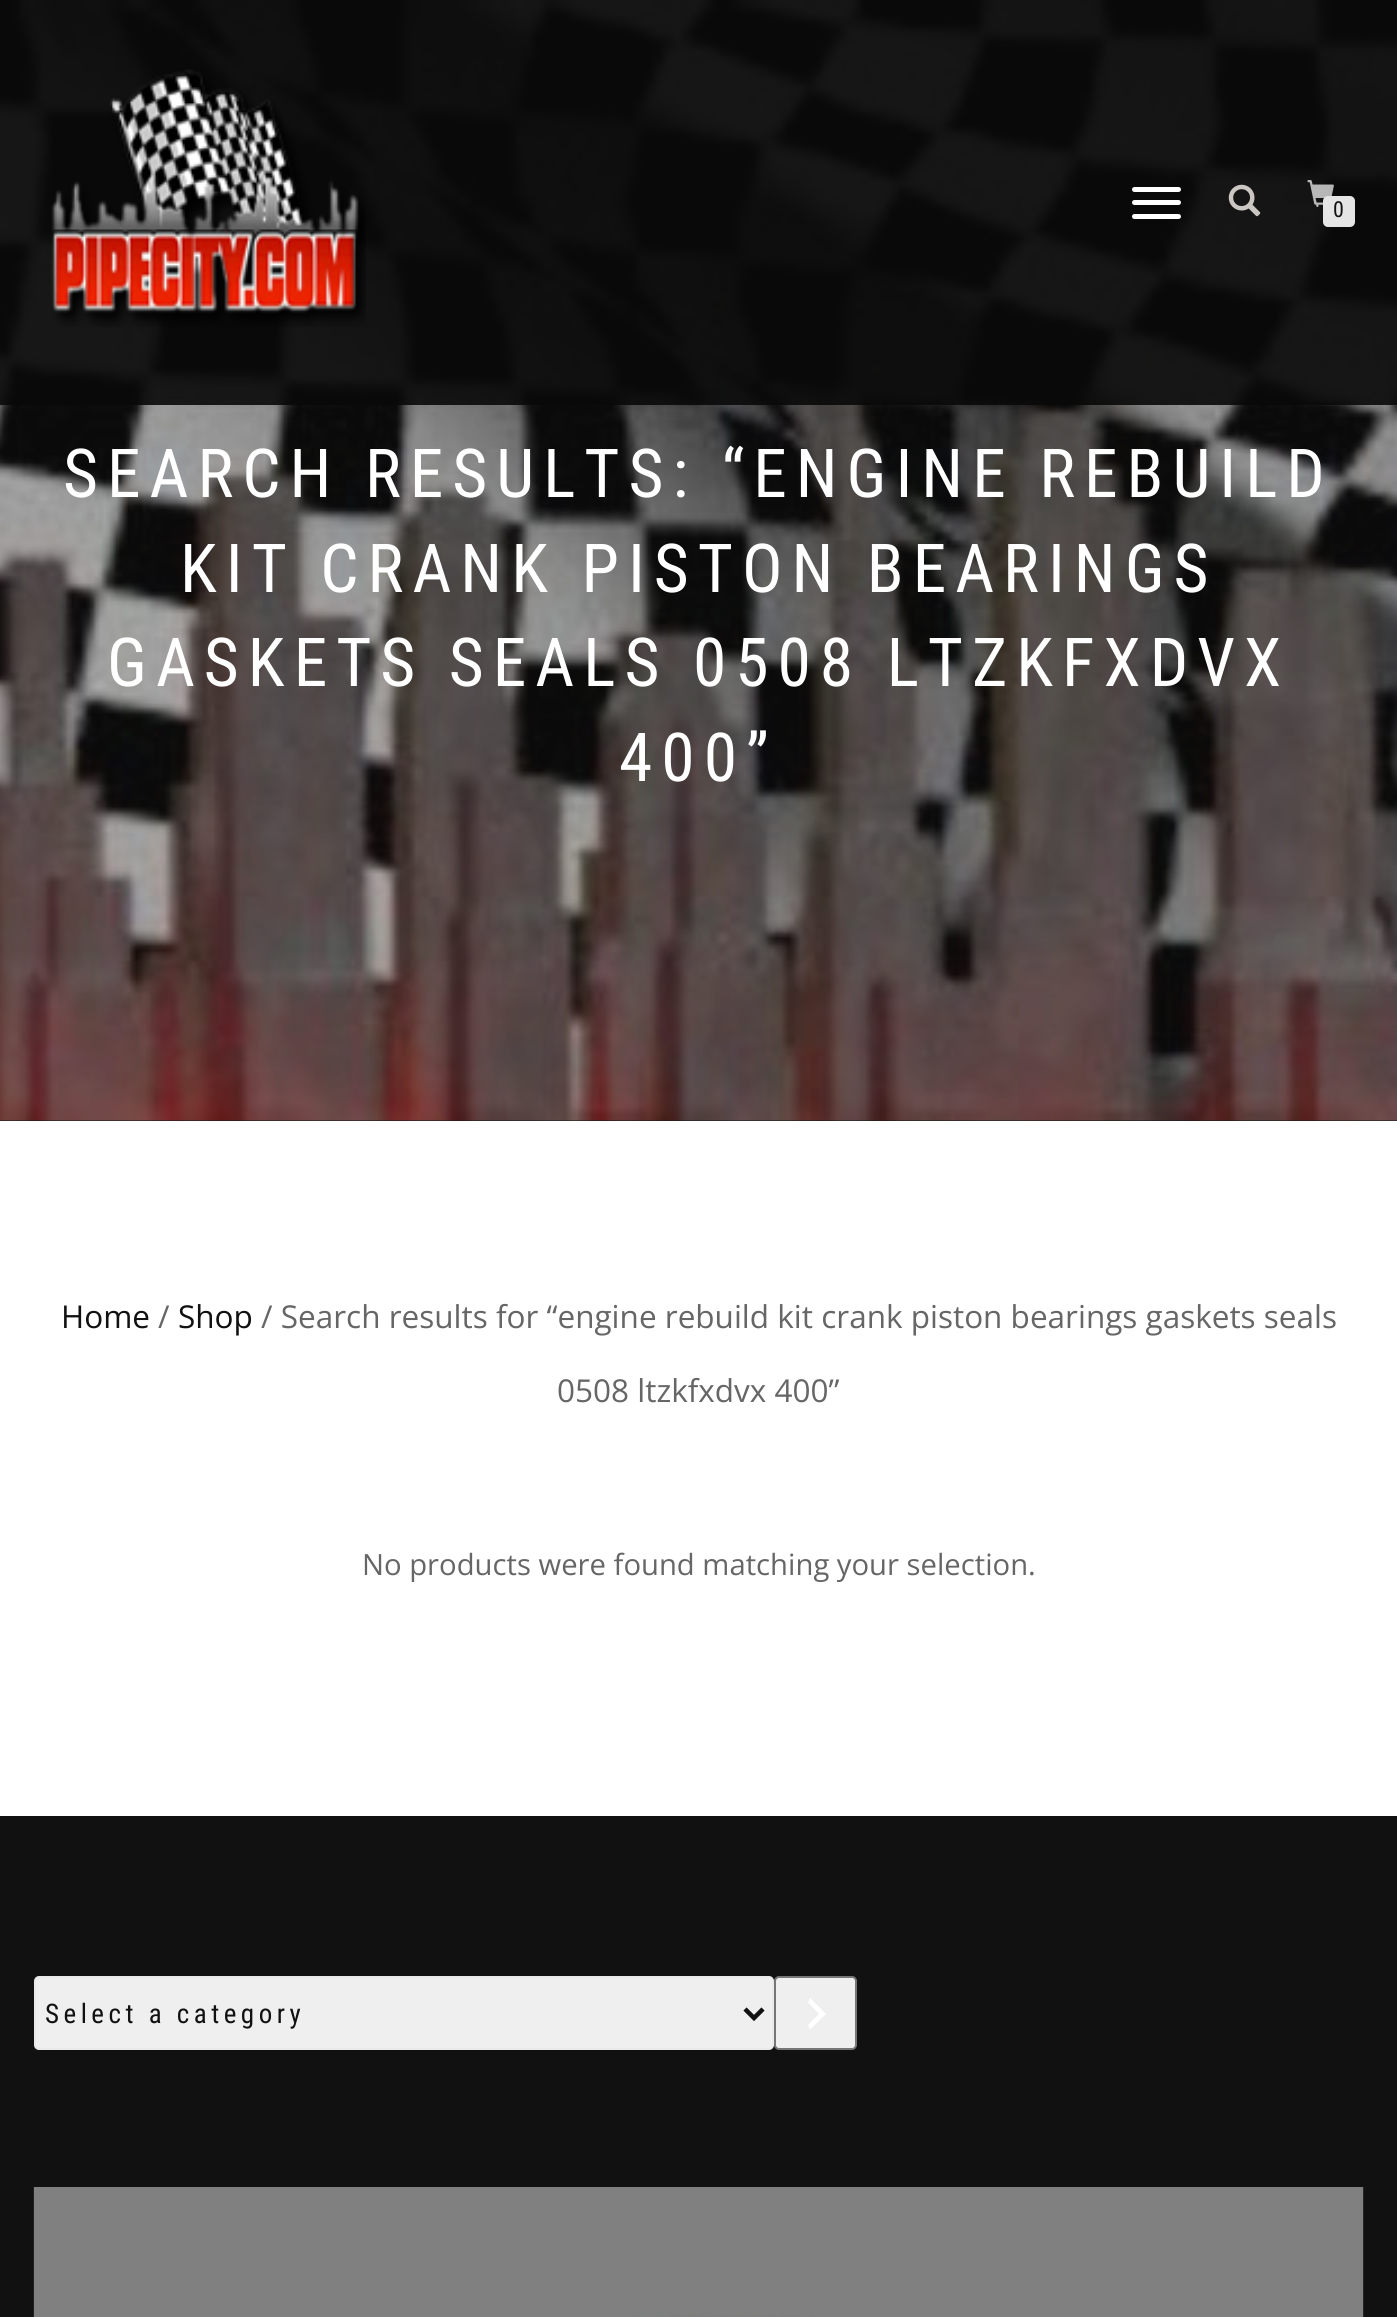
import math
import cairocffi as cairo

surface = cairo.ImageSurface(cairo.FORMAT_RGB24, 1397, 2317)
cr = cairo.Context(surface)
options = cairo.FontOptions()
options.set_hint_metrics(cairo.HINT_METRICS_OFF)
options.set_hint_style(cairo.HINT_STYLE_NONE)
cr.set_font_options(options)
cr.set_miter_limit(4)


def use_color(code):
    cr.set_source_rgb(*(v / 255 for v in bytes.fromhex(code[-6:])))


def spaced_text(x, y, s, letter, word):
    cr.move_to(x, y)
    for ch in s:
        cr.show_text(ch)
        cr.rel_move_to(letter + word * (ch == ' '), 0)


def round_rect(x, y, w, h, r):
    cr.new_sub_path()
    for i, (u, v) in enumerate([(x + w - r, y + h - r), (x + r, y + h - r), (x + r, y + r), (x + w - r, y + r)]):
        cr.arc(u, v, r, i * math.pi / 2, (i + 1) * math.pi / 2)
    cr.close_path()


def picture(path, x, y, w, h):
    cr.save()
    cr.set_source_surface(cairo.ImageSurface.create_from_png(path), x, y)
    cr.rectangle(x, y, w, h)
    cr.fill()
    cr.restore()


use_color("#ffffff")
cr.paint()
use_color("#161616")
cr.rectangle(0, 1120, 1397, 1)
cr.fill()
picture("img4.png", 0, 0, 1397, 1121)
cr.set_source_rgba(0.039, 0.039, 0.039, 0.9)
cr.rectangle(0, 0, 1397, 405)
cr.fill()
picture("img1.png", 51, 69, 315, 258)
use_color("#ffffff")
round_rect(1132, 187, 49, 5, 2.5)
cr.fill()
round_rect(1132, 200, 49, 5, 2.5)
cr.fill()
round_rect(1132, 214, 49, 5, 2.5)
cr.fill()
picture("img2.png", 1228, 184, 33, 33)
picture("img3.png", 1307, 180, 27, 27)
use_color("#e5e5e5")
round_rect(1323, 196, 32, 31, 5)
cr.fill()
cr.select_font_face("Roboto Condensed")
cr.set_font_size(22)
use_color("#111111")
cr.move_to(1333, 217)
cr.show_text("0")
cr.set_font_size(67.5)
use_color("#ffffff")
spaced_text(63, 497, "SEARCH RESULTS: “ENGINE REBUILD", 9, 0)
spaced_text(180, 592, "KIT CRANK PISTON BEARINGS", 9, 0)
spaced_text(107, 686, "GASKETS SEALS 0508 LTZKFXDVX", 9, 0)
spaced_text(619, 781, "400”", 9, 0)
cr.select_font_face("Open Sans")
cr.set_font_size(31.5)
use_color("#111111")
cr.move_to(61, 1328)
cr.show_text("Home")
use_color("#666666")
cr.move_to(158, 1328)
cr.show_text("/")
use_color("#111111")
cr.move_to(178, 1328)
cr.show_text("Shop")
use_color("#666666")
cr.move_to(261, 1328)
cr.show_text("/ Search results for “engine rebuild kit crank piston bearings gaskets seals")
cr.move_to(557, 1402)
cr.show_text("0508 ltzkfxdvx 400”")
cr.set_font_size(29.25)
cr.move_to(362, 1575)
cr.show_text("No products were found matching your selection.")
use_color("#111111")
cr.rectangle(0, 1816, 1397, 501)
cr.fill()
use_color("#090909")
cr.rectangle(1363, 2187, 1, 130)
cr.fill()
use_color("#efefef")
round_rect(35, 1977, 738, 72, 4)
cr.fill_preserve()
use_color("#eaeaea")
cr.stroke()
cr.new_path()
cr.move_to(745, 2009)
cr.line_to(754, 2018)
cr.line_to(763, 2009)
use_color("#111111")
cr.set_line_width(4.5)
cr.stroke()
cr.select_font_face("Roboto Condensed")
cr.set_font_size(27)
spaced_text(45, 2023, "Select a category", 4.5, 0)
use_color("#efefef")
round_rect(775, 1977, 81, 72, 4)
cr.fill_preserve()
use_color("#767676")
cr.set_line_width(2)
cr.stroke()
use_color("#ffffff")
cr.new_path()
cr.move_to(808, 2025)
cr.line_to(819, 2014)
cr.line_to(808, 2002.5)
cr.line_to(810, 1998)
cr.line_to(826, 2014)
cr.line_to(810, 2029.5)
cr.close_path()
cr.fill()
picture("img5.png", 33, 2187, 1331, 130)
surface.write_to_png("result.png")
